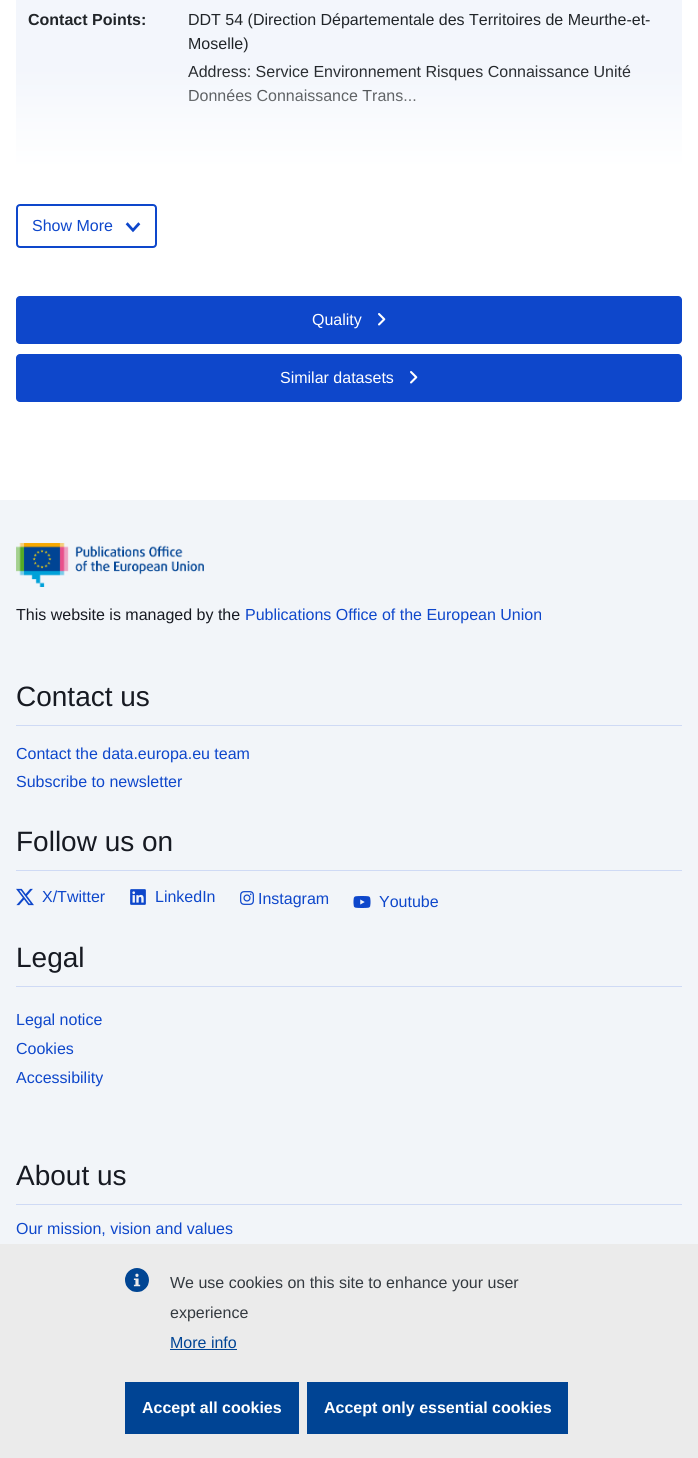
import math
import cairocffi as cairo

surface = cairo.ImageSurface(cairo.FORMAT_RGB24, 698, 1458)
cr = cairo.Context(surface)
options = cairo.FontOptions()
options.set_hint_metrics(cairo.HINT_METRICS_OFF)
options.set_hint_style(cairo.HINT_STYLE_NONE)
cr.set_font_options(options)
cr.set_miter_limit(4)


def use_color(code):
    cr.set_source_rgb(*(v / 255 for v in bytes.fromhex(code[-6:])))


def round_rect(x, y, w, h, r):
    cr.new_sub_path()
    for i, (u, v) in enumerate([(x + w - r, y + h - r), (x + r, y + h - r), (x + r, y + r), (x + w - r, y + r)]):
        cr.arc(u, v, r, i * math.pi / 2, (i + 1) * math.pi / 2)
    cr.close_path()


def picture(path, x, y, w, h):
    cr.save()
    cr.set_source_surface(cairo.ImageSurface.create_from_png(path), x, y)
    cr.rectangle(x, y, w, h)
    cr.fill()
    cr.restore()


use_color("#ffffff")
cr.paint()
use_color("#f3f6fc")
round_rect(16, -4, 666, 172, 4)
cr.fill()
cr.select_font_face("Liberation Sans", cairo.FONT_SLANT_NORMAL, cairo.FONT_WEIGHT_BOLD)
cr.set_font_size(16)
use_color("#212529")
cr.move_to(28, 25)
cr.show_text("Contact Points:")
cr.select_font_face("Liberation Sans")
cr.move_to(188, 25)
cr.show_text("DDT 54 (Direction Départementale des Territoires de Meurthe-et-")
cr.move_to(188, 49)
cr.show_text("Moselle)")
cr.move_to(188, 77)
cr.show_text("Address: Service Environnement Risques Connaissance Unité")
cr.move_to(188, 101)
cr.show_text("Données Connaissance Trans...")
gradient = cairo.LinearGradient(349, 68, 349, 168)
gradient.add_color_stop_rgba(0, 1, 1, 1, 0)
gradient.add_color_stop_rgba(1, 1, 1, 1, 1)
cr.set_source(gradient)
cr.rectangle(16, 70, 666, 98)
cr.fill()
round_rect(17, 205, 139, 42, 3)
use_color("#0e47cb")
cr.stroke()
cr.move_to(32, 231)
cr.show_text("Show More")
picture("img1.png", 125, 222, 16, 11)
round_rect(16, 296, 666, 48, 4)
cr.fill()
use_color("#ffffff")
cr.move_to(312, 325)
cr.show_text("Quality")
picture("img2.png", 378, 313, 8, 13)
use_color("#0e47cb")
round_rect(16, 354, 666, 48, 4)
cr.fill()
use_color("#ffffff")
cr.move_to(280, 383)
cr.show_text("Similar datasets")
picture("img2.png", 410, 371, 8, 13)
use_color("#f2f5f9")
cr.rectangle(0, 500, 698, 744)
cr.fill()
picture("img3.png", 16, 543, 188, 44)
use_color("#171a22")
cr.move_to(16, 620)
cr.show_text("This website is managed by the")
use_color("#0e47cb")
cr.move_to(245, 620)
cr.show_text("Publications Office of the European Union")
use_color("#cfdaf5")
cr.rectangle(16, 725, 666, 1)
cr.fill()
cr.set_font_size(28)
use_color("#171a22")
cr.move_to(16, 706)
cr.show_text("Contact us")
cr.set_font_size(16)
use_color("#0e47cb")
cr.move_to(16, 759)
cr.show_text("Contact the data.europa.eu team")
cr.move_to(16, 787)
cr.show_text("Subscribe to newsletter")
use_color("#cfdaf5")
cr.rectangle(16, 870, 666, 1)
cr.fill()
cr.set_font_size(28)
use_color("#171a22")
cr.move_to(16, 851)
cr.show_text("Follow us on")
picture("img4.png", 16, 888, 18, 18)
cr.set_font_size(16)
use_color("#0e47cb")
cr.move_to(42, 902)
cr.show_text("X/Twitter")
picture("img5.png", 130, 889, 16, 16)
cr.move_to(155, 902)
cr.show_text("LinkedIn")
picture("img6.png", 240, 891, 14, 14)
cr.move_to(258, 904)
cr.show_text("Instagram")
picture("img7.png", 353, 896, 18, 12)
cr.move_to(379, 907)
cr.show_text("Youtube")
use_color("#cfdaf5")
cr.rectangle(16, 986, 666, 1)
cr.fill()
cr.set_font_size(28)
use_color("#171a22")
cr.move_to(16, 967)
cr.show_text("Legal")
cr.set_font_size(16)
use_color("#0e47cb")
cr.move_to(16, 1025)
cr.show_text("Legal notice")
cr.move_to(16, 1054)
cr.show_text("Cookies")
cr.move_to(16, 1083)
cr.show_text("Accessibility")
use_color("#cfdaf5")
cr.rectangle(16, 1204, 666, 1)
cr.fill()
cr.set_font_size(28)
use_color("#171a22")
cr.move_to(16, 1185)
cr.show_text("About us")
cr.set_font_size(16)
use_color("#0e47cb")
cr.move_to(16, 1234)
cr.show_text("Our mission, vision and values")
use_color("#ebebeb")
cr.rectangle(0, 1244, 698, 214)
cr.fill()
picture("img8.png", 125, 1268, 24, 24)
use_color("#343a40")
cr.move_to(170, 1288)
cr.show_text("We use cookies on this site to enhance your user")
cr.move_to(170, 1318)
cr.show_text("experience")
use_color("#004494")
cr.move_to(170, 1348)
cr.show_text("More info")
cr.rectangle(170, 1349, 67, 1)
cr.fill()
cr.rectangle(125, 1382, 174, 52)
cr.fill()
cr.select_font_face("Liberation Sans", cairo.FONT_SLANT_NORMAL, cairo.FONT_WEIGHT_BOLD)
use_color("#ffffff")
cr.move_to(142, 1413)
cr.show_text("Accept all cookies")
use_color("#004494")
cr.rectangle(307, 1382, 261, 52)
cr.fill()
use_color("#ffffff")
cr.move_to(324, 1413)
cr.show_text("Accept only essential cookies")
surface.write_to_png("result.png")
